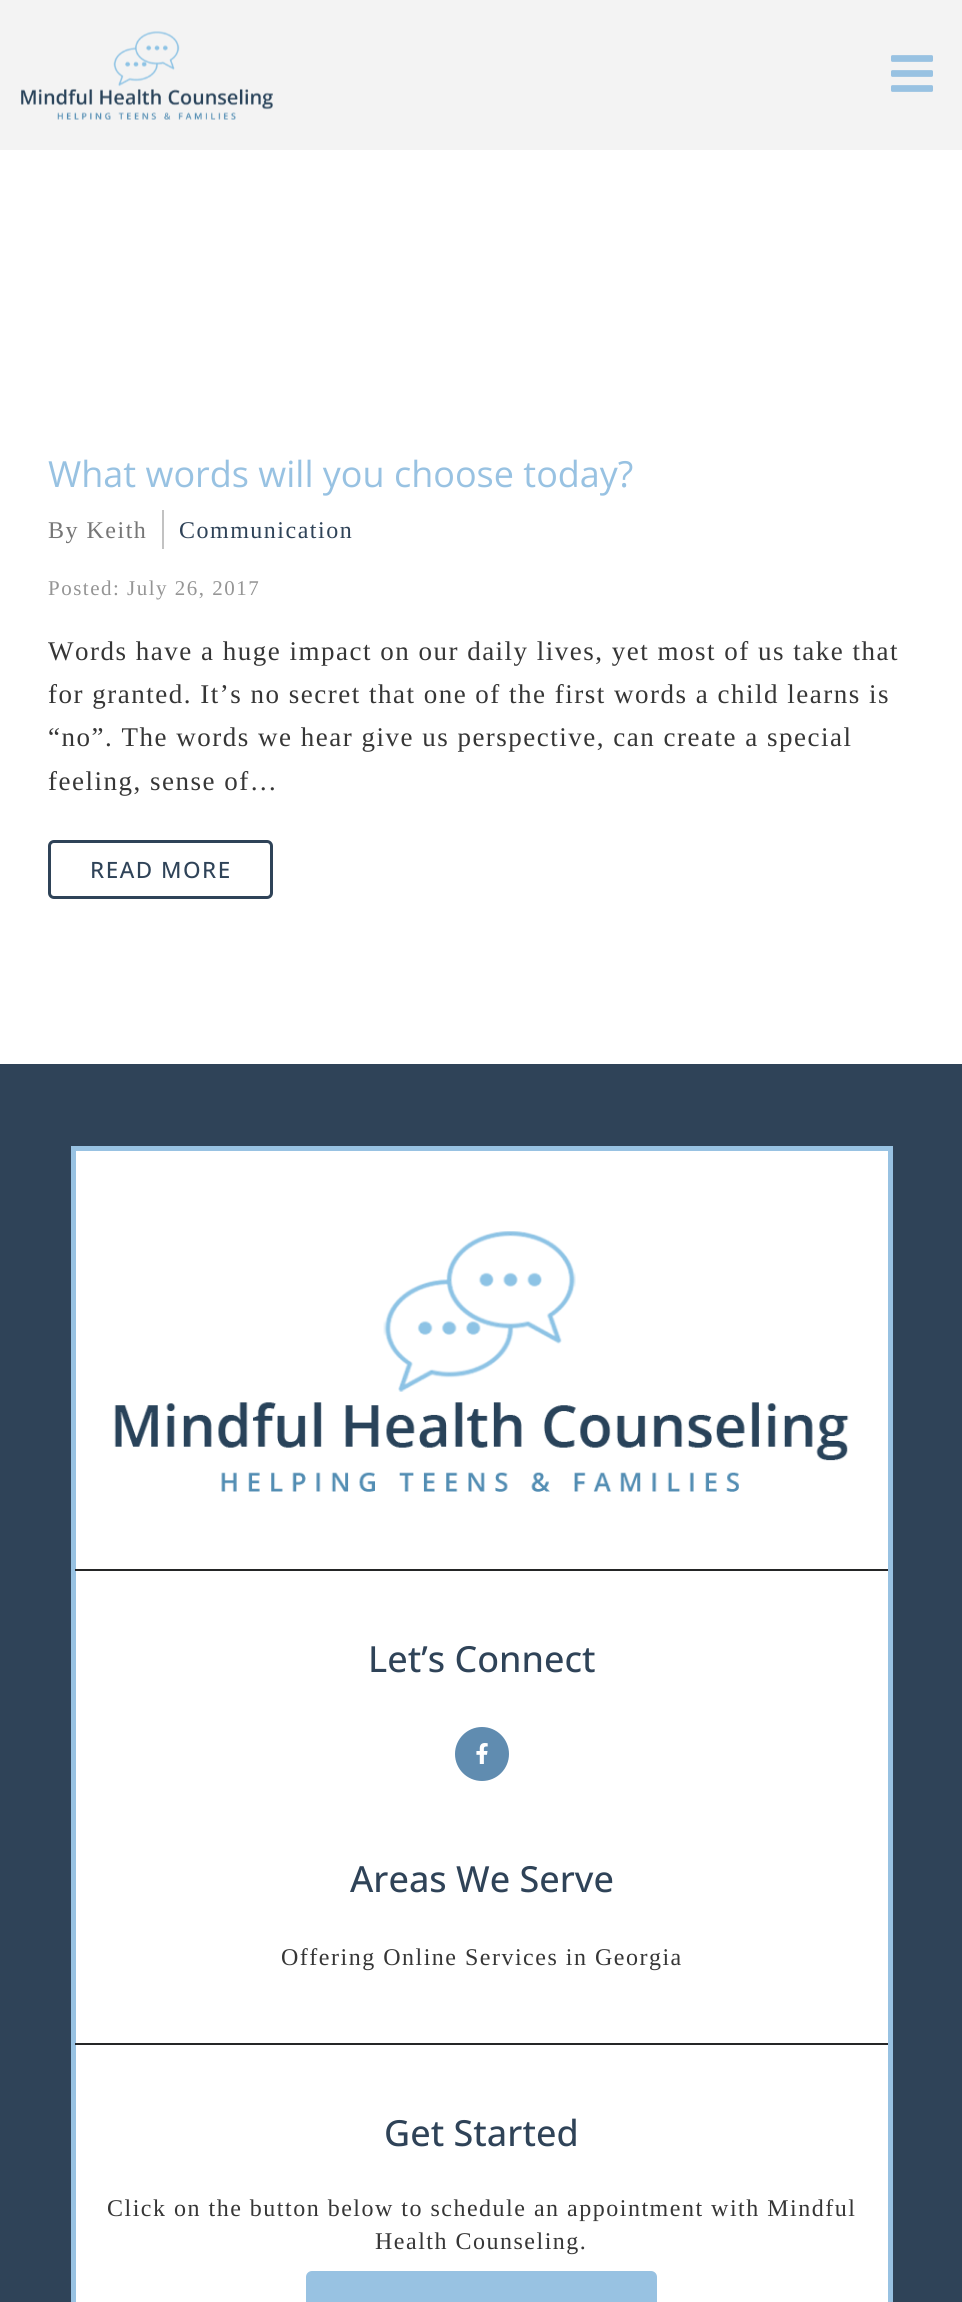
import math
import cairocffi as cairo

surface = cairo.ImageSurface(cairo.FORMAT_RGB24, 962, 2302)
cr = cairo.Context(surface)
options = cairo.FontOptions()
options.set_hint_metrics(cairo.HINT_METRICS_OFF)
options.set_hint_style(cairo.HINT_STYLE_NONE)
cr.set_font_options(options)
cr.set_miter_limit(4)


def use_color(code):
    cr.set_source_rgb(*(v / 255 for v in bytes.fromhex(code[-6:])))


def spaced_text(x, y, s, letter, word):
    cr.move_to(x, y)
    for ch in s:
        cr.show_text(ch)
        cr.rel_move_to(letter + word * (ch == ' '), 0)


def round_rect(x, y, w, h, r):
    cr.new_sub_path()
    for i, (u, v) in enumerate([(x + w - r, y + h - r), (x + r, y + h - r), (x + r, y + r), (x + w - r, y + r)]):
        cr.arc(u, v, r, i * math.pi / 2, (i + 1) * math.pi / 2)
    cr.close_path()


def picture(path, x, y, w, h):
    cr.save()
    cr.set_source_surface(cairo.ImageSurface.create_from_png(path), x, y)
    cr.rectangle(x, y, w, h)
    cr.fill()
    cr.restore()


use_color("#ffffff")
cr.paint()
use_color("#f3f3f3")
cr.rectangle(0, 0, 962, 150)
cr.fill()
picture("img1.png", 21, 31, 252, 89)
picture("img2.png", 891, 55, 42, 37)
cr.select_font_face("Open Sans")
cr.set_font_size(36)
use_color("#98c2e2")
cr.move_to(48, 487)
cr.show_text("What words will you choose today?")
cr.select_font_face("Liberation Serif")
cr.set_font_size(24)
use_color("#767676")
spaced_text(48, 538, "By Keith", 1.5, 0)
use_color("#c2c2c2")
cr.rectangle(162, 510, 2, 39)
cr.fill()
use_color("#2f4358")
spaced_text(179, 538, "Communication", 1.5, 0)
cr.set_font_size(21)
use_color("#959595")
spaced_text(48, 595, "Posted: July 26, 2017", 1.5, 0)
cr.set_font_size(27)
use_color("#363636")
spaced_text(48, 660, "Words have a huge impact on our daily lives, yet most of us take that", 1.5, 0)
spaced_text(48, 703, "for granted. It’s no secret that one of the first words a child learns is", 1.5, 0)
spaced_text(48, 746, "“no”. The words we hear give us perspective, can create a special", 1.5, 0)
spaced_text(48, 790, "feeling, sense of…", 1.5, 0)
round_rect(49.5, 841.5, 222, 56, 4.5)
use_color("#2f4358")
cr.set_line_width(3)
cr.stroke()
cr.select_font_face("Open Sans Medium")
cr.set_font_size(22.5)
spaced_text(90, 878, "READ MORE", 1.5, 0)
cr.rectangle(0, 1064, 962, 1238)
cr.fill()
use_color("#ffffff")
cr.rectangle(73.5, 1148.5, 817, 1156)
cr.fill_preserve()
use_color("#98c2e2")
cr.set_line_width(5)
cr.stroke()
picture("img3.png", 114, 1231, 735, 261)
use_color("#252627")
cr.rectangle(75, 1569, 813, 2)
cr.fill()
cr.set_font_size(36)
use_color("#2f4358")
cr.move_to(368, 1672)
cr.show_text("Let’s Connect")
use_color("#608cb0")
cr.new_path()
cr.arc(482, 1754, 24.5, 0, 2 * math.pi)
cr.fill_preserve()
cr.stroke()
picture("img4.png", 476, 1743, 12, 21)
use_color("#2f4358")
cr.move_to(350, 1892)
cr.show_text("Areas We Serve")
cr.select_font_face("Liberation Serif")
cr.set_font_size(24)
use_color("#363636")
spaced_text(281, 1965, "Offering Online Services in Georgia", 1.5, 0)
use_color("#252627")
cr.rectangle(75, 2043, 813, 2)
cr.fill()
cr.select_font_face("Open Sans Medium")
cr.set_font_size(36)
use_color("#2f4358")
cr.move_to(384, 2146)
cr.show_text("Get Started")
cr.select_font_face("Liberation Serif")
cr.set_font_size(24)
use_color("#363636")
spaced_text(107, 2216, "Click on the button below to schedule an appointment with Mindful", 1.5, 0)
spaced_text(375, 2249, "Health Counseling.", 1.5, 0)
use_color("#98c2e2")
round_rect(306, 2271, 351, 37, 6)
cr.fill()
surface.write_to_png("result.png")
